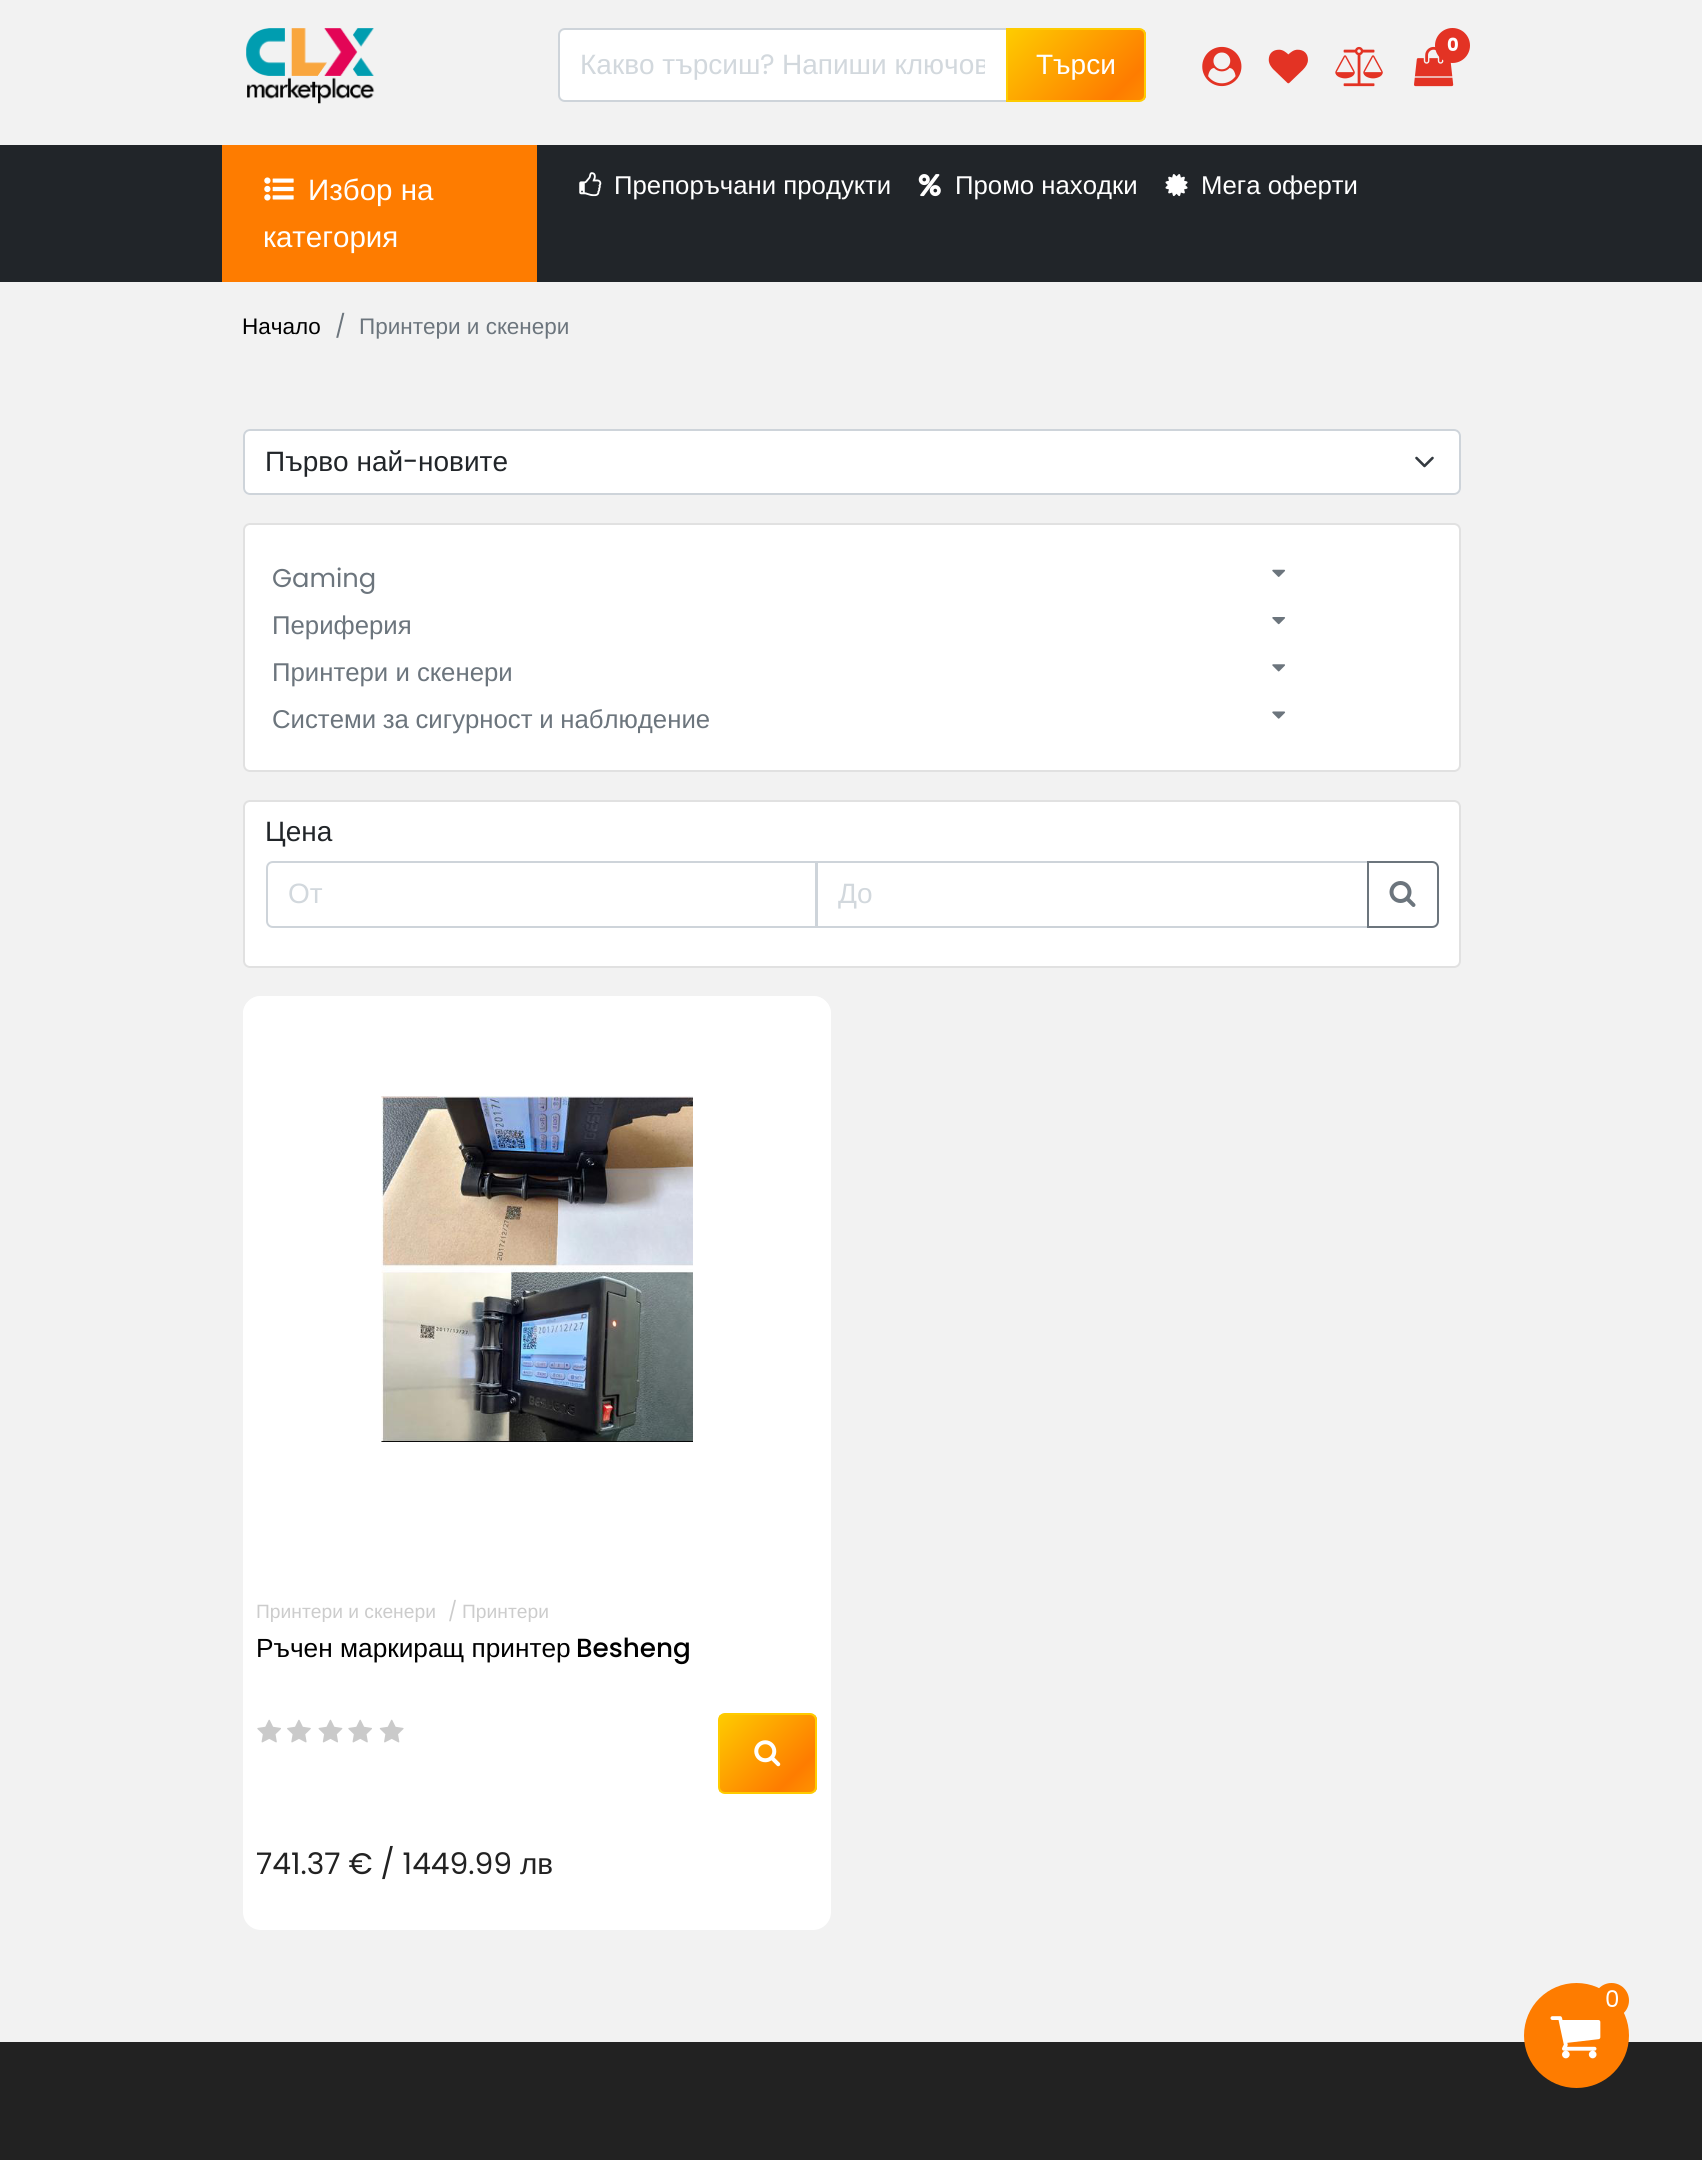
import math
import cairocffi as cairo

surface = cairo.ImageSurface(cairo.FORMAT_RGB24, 1702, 2160)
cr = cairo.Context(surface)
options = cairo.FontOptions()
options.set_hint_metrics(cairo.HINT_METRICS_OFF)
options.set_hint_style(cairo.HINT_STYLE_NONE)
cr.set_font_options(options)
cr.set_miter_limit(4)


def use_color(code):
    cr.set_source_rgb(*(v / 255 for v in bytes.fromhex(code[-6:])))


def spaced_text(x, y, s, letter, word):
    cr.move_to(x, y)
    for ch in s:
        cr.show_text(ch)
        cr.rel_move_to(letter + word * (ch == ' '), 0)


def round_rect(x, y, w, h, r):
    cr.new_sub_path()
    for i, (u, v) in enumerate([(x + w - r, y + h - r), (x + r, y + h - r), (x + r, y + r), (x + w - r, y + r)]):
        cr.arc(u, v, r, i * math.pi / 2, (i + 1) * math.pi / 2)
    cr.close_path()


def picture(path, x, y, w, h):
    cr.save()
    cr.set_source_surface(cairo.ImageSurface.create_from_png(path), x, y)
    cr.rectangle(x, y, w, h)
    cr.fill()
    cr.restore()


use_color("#f2f2f2")
cr.paint()
picture("img1.png", 246, 28, 129, 76)
picture("img2.png", 1414, 46, 40, 41)
use_color("#e33324")
cr.arc(1452.5, 45.5, 17.5, 0, 2 * math.pi)
cr.fill()
cr.select_font_face("Poppins", cairo.FONT_SLANT_NORMAL, cairo.FONT_WEIGHT_BOLD)
cr.set_font_size(18)
use_color("#ffffff")
cr.move_to(1447, 51)
cr.show_text("0")
picture("img3.png", 1202, 46, 40, 41)
picture("img4.png", 1268, 49, 40, 35)
picture("img5.png", 1335, 46, 48, 41)
cr.new_path()
cr.move_to(565, 29)
cr.line_to(1007, 29)
cr.line_to(1007, 101)
cr.line_to(565, 101)
cr.curve_to(561.5, 101, 559, 98.5, 559, 95)
cr.line_to(559, 35)
cr.curve_to(559, 31.5, 561.5, 29, 565, 29)
cr.close_path()
cr.fill_preserve()
use_color("#ced4da")
cr.stroke()
cr.select_font_face("Liberation Sans")
cr.set_font_size(28)
use_color("#d2d8dd")
cr.move_to(580, 74)
cr.show_text("Какво търсиш")
cr.select_font_face("Poppins")
cr.move_to(760, 74)
cr.show_text("?")
cr.save()
cr.rectangle(581, 42, 404, 44)
cr.clip()
cr.select_font_face("Liberation Sans")
cr.move_to(782, 74)
cr.show_text("Напиши ключов")
cr.restore()
cr.save()
cr.new_path()
cr.move_to(1006, 28)
cr.line_to(1139, 28)
cr.curve_to(1143, 28, 1146, 31, 1146, 35)
cr.line_to(1146, 95)
cr.curve_to(1146, 99, 1143, 102, 1139, 102)
cr.line_to(1006, 102)
cr.close_path()
cr.clip()
gradient = cairo.LinearGradient(1059, -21, 1230, 151)
gradient.add_color_stop_rgba(0, 0.996, 0.796, 0, 1)
gradient.add_color_stop_rgba(0.5, 0.996, 0.486, 0, 1)
gradient.add_color_stop_rgba(1, 0.996, 0.796, 0, 1)
cr.set_source(gradient)
cr.rectangle(1008, 30, 138, 70)
cr.fill()
cr.restore()
cr.new_path()
cr.move_to(1007, 29)
cr.line_to(1139, 29)
cr.curve_to(1142.5, 29, 1145, 31.5, 1145, 35)
cr.line_to(1145, 95)
cr.curve_to(1145, 98.5, 1142.5, 101, 1139, 101)
cr.line_to(1007, 101)
cr.close_path()
use_color("#fecb00")
cr.stroke()
cr.select_font_face("Liberation Sans")
use_color("#ffffff")
cr.move_to(1036, 74)
cr.show_text("Търси")
use_color("#212529")
cr.rectangle(0, 145, 1702, 137)
cr.fill()
use_color("#fe7c00")
cr.rectangle(222, 145, 315, 137)
cr.fill()
picture("img6.png", 264, 177, 30, 24)
cr.set_font_size(29.5)
use_color("#ffffff")
cr.move_to(308, 200)
cr.show_text("Избор на")
cr.move_to(263, 247)
cr.show_text("категория")
picture("img7.png", 579, 172, 23, 25)
cr.set_font_size(25.75)
cr.move_to(614, 194)
cr.show_text("Препоръчани продукти")
picture("img8.png", 918, 174, 23, 23)
cr.move_to(955, 194)
cr.show_text("Промо находки")
picture("img9.png", 1165, 174, 23, 23)
cr.move_to(1201, 194)
cr.show_text("Мега оферти")
cr.set_font_size(22.5)
use_color("#000000")
cr.move_to(242, 334)
cr.show_text("Начало")
cr.select_font_face("Poppins")
use_color("#6c757d")
cr.move_to(335, 334)
cr.show_text("/")
cr.select_font_face("Liberation Sans")
cr.move_to(359, 334)
cr.show_text("Принтери и скенери")
use_color("#ffffff")
round_rect(243, 429, 1218, 66, 7)
cr.fill()
cr.new_path()
cr.move_to(1416.5, 458)
cr.line_to(1424.5, 466)
cr.line_to(1432.5, 458)
use_color("#343a40")
cr.set_line_width(2.6)
cr.set_line_cap(cairo.LINE_CAP_ROUND)
cr.set_line_join(cairo.LINE_JOIN_ROUND)
cr.stroke()
round_rect(244, 430, 1216, 64, 6)
use_color("#ced4da")
cr.set_line_width(2)
cr.set_line_cap(cairo.LINE_CAP_BUTT)
cr.set_line_join(cairo.LINE_JOIN_MITER)
cr.stroke()
cr.set_font_size(28)
use_color("#212529")
cr.move_to(265, 471)
cr.show_text("Първо най")
cr.select_font_face("Poppins")
cr.move_to(403, 471)
cr.show_text("-")
cr.select_font_face("Liberation Sans")
cr.move_to(418, 471)
cr.show_text("новите")
use_color("#ffffff")
round_rect(243, 523, 1218, 249, 7)
cr.fill()
round_rect(244, 524, 1216, 247, 6)
cr.set_source_rgba(0, 0, 0, 0.12)
cr.stroke()
cr.select_font_face("Poppins")
cr.set_font_size(25.75)
use_color("#6c757d")
cr.move_to(272, 587)
cr.show_text("Gaming")
picture("img10.png", 1272, 569, 14, 8)
cr.select_font_face("Liberation Sans")
cr.move_to(272, 634)
cr.show_text("Периферия")
picture("img11.png", 1272, 617, 14, 8)
cr.move_to(272, 681)
cr.show_text("Принтери и скенери")
picture("img12.png", 1272, 664, 13, 8)
spaced_text(272, 728, "Системи за сигурност и наблюдение", 0, -0.5)
picture("img13.png", 1272, 711, 14, 8)
use_color("#ffffff")
round_rect(243, 800, 1218, 168, 7)
cr.fill()
round_rect(244, 801, 1216, 166, 6)
cr.set_source_rgba(0, 0, 0, 0.12)
cr.stroke()
cr.set_font_size(28)
use_color("#212529")
cr.move_to(265, 841)
cr.show_text("Цена")
cr.new_path()
cr.move_to(273, 862)
cr.line_to(816, 862)
cr.line_to(816, 927)
cr.line_to(273, 927)
cr.curve_to(269.5, 927, 267, 924.5, 267, 921)
cr.line_to(267, 868)
cr.curve_to(267, 864.5, 269.5, 862, 273, 862)
cr.close_path()
use_color("#ced4da")
cr.stroke()
use_color("#d2d8dd")
cr.move_to(288, 903)
cr.show_text("От")
cr.rectangle(817, 862, 551, 65)
use_color("#ced4da")
cr.stroke()
use_color("#d2d8dd")
cr.move_to(838, 903)
cr.show_text("До")
cr.new_path()
cr.move_to(1368, 862)
cr.line_to(1432, 862)
cr.curve_to(1435.5, 862, 1438, 864.5, 1438, 868)
cr.line_to(1438, 921)
cr.curve_to(1438, 924.5, 1435.5, 927, 1432, 927)
cr.line_to(1368, 927)
cr.close_path()
use_color("#6c757d")
cr.stroke()
picture("img14.png", 1389, 881, 27, 26)
use_color("#ffffff")
round_rect(243, 996, 588, 934, 18)
cr.fill()
cr.new_path()
cr.move_to(261, 996)
cr.line_to(813, 996)
cr.curve_to(823, 996, 831, 1004, 831, 1014)
cr.line_to(831, 1584)
cr.line_to(243, 1584)
cr.line_to(243, 1014)
cr.curve_to(243, 1004, 251, 996, 261, 996)
cr.close_path()
cr.fill()
picture("img15.png", 381, 1096, 312, 346)
cr.set_font_size(19.25)
use_color("#cccccc")
cr.move_to(256, 1618)
cr.show_text("Принтери и скенери")
cr.select_font_face("Poppins")
cr.move_to(448, 1618)
cr.show_text("/")
cr.select_font_face("Liberation Sans")
cr.move_to(462, 1618)
cr.show_text("Принтери")
cr.set_font_size(26.25)
use_color("#000000")
cr.move_to(256, 1657)
cr.show_text("Ръчен маркиращ принтер")
cr.select_font_face("Poppins Medium")
cr.move_to(576, 1657)
cr.show_text("Besheng")
picture("img16.png", 257, 1719, 24, 24)
picture("img17.png", 287, 1719, 24, 24)
picture("img18.png", 318, 1719, 25, 24)
picture("img16.png", 348, 1719, 24, 24)
picture("img19.png", 379, 1719, 25, 24)
cr.save()
round_rect(718, 1713, 99, 81, 7)
cr.clip()
gradient = cairo.LinearGradient(748, 1686, 883, 1821)
gradient.add_color_stop_rgba(0, 0.996, 0.796, 0, 1)
gradient.add_color_stop_rgba(0.5, 0.996, 0.486, 0, 1)
gradient.add_color_stop_rgba(1, 0.996, 0.796, 0, 1)
cr.set_source(gradient)
cr.rectangle(719, 1715, 98, 77)
cr.fill()
cr.restore()
round_rect(719, 1714, 97, 79, 6)
use_color("#fecb00")
cr.stroke()
picture("img20.png", 754, 1740, 27, 27)
cr.select_font_face("Poppins")
cr.set_font_size(29.75)
use_color("#222222")
cr.move_to(256, 1874)
cr.show_text("741.37 € / 1449.99")
cr.select_font_face("Liberation Sans")
cr.move_to(520, 1874)
cr.show_text("лв")
cr.rectangle(0, 2042, 1702, 118)
cr.fill()
use_color("#fe7c00")
cr.arc(1576.5, 2035.5, 52.5, 0, 2 * math.pi)
cr.fill()
picture("img21.png", 1550, 2016, 51, 43)
cr.arc(1611.5, 2000.5, 17.5, 0, 2 * math.pi)
cr.fill()
cr.select_font_face("Poppins")
cr.set_font_size(23)
use_color("#ffffff")
cr.move_to(1605, 2007)
cr.show_text("0")
surface.write_to_png("result.png")
